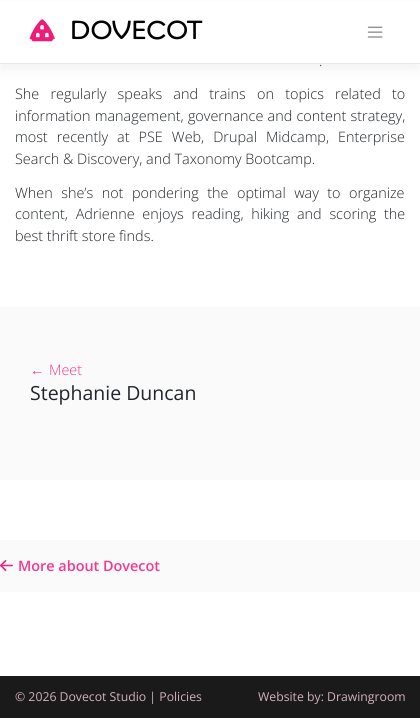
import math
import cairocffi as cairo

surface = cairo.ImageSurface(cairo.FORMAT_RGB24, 420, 718)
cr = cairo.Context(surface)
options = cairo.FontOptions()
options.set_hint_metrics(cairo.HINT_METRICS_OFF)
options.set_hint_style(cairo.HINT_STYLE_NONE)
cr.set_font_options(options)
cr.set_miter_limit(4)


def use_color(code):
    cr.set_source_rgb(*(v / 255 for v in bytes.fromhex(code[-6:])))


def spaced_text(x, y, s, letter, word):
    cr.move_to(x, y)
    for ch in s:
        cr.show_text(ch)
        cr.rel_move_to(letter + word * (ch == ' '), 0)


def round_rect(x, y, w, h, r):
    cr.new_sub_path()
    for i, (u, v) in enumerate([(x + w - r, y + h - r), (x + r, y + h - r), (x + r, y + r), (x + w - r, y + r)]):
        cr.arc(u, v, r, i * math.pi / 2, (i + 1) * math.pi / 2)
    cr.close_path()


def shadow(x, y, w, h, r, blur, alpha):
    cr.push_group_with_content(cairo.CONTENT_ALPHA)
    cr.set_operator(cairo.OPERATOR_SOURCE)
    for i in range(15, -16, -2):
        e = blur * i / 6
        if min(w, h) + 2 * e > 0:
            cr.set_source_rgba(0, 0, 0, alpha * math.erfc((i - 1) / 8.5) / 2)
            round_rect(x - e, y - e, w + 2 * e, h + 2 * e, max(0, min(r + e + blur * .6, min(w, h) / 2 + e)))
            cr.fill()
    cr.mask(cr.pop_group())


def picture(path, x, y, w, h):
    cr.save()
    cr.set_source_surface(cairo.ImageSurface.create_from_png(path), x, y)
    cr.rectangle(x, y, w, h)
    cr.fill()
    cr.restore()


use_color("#ffffff")
cr.paint()
use_color("#000000")
shadow(0, 6, 420, 64, 0, 6, 0.05)
use_color("#ffffff")
cr.rectangle(0, 1, 420, 62)
cr.fill()
use_color("#e6e6e6")
cr.rectangle(0, 63, 420, 1)
cr.fill()
picture("img1.png", 29, 19, 174, 23)
picture("img2.png", 367, 26, 16, 12)
cr.select_font_face("Open Sans Light")
cr.set_font_size(14.4)
use_color("#212529")
cr.move_to(319, 66)
cr.show_text(".")
spaced_text(15, 99, "She regularly speaks and trains on topics related to", 0, 7.5)
spaced_text(15, 121, "information management, governance and content strategy,", 0, 0.5)
spaced_text(15, 142, "most recently at PSE Web, Drupal Midcamp, Enterprise", 0, 5.25)
cr.move_to(15, 164)
cr.show_text("Search & Discovery, and Taxonomy Bootcamp.")
spaced_text(15, 198, "When she’s not pondering the optimal way to organize", 0, 4.75)
spaced_text(15, 219, "content, Adrienne enjoys reading, hiking and scoring the", 0, 4)
cr.move_to(15, 241)
cr.show_text("best thrift store finds.")
use_color("#fafafa")
cr.rectangle(0, 307, 420, 173)
cr.fill()
cr.select_font_face("Liberation Sans")
use_color("#f2388f")
cr.move_to(30, 375)
cr.show_text("←")
cr.select_font_face("Open Sans Light")
cr.move_to(49, 375)
cr.show_text("Meet")
cr.select_font_face("Open Sans")
cr.set_font_size(19.5)
use_color("#212529")
cr.move_to(30, 400)
cr.show_text("Stephanie Duncan")
use_color("#fafafa")
cr.rectangle(0, 540, 420, 52)
cr.fill()
picture("img3.png", 0, 560, 13, 11)
cr.select_font_face("Open Sans SemiBold")
cr.set_font_size(14.4)
use_color("#f2388f")
cr.move_to(18, 571)
cr.show_text("More about Dovecot")
use_color("#1a1a1a")
cr.rectangle(0, 676, 420, 42)
cr.fill()
cr.select_font_face("Open Sans")
cr.set_font_size(12.25)
use_color("#d1b1be")
cr.move_to(15, 701)
cr.show_text("© 2026 Dovecot Studio | Policies")
cr.move_to(258, 701)
cr.show_text("Website by: Drawingroom")
surface.write_to_png("result.png")
